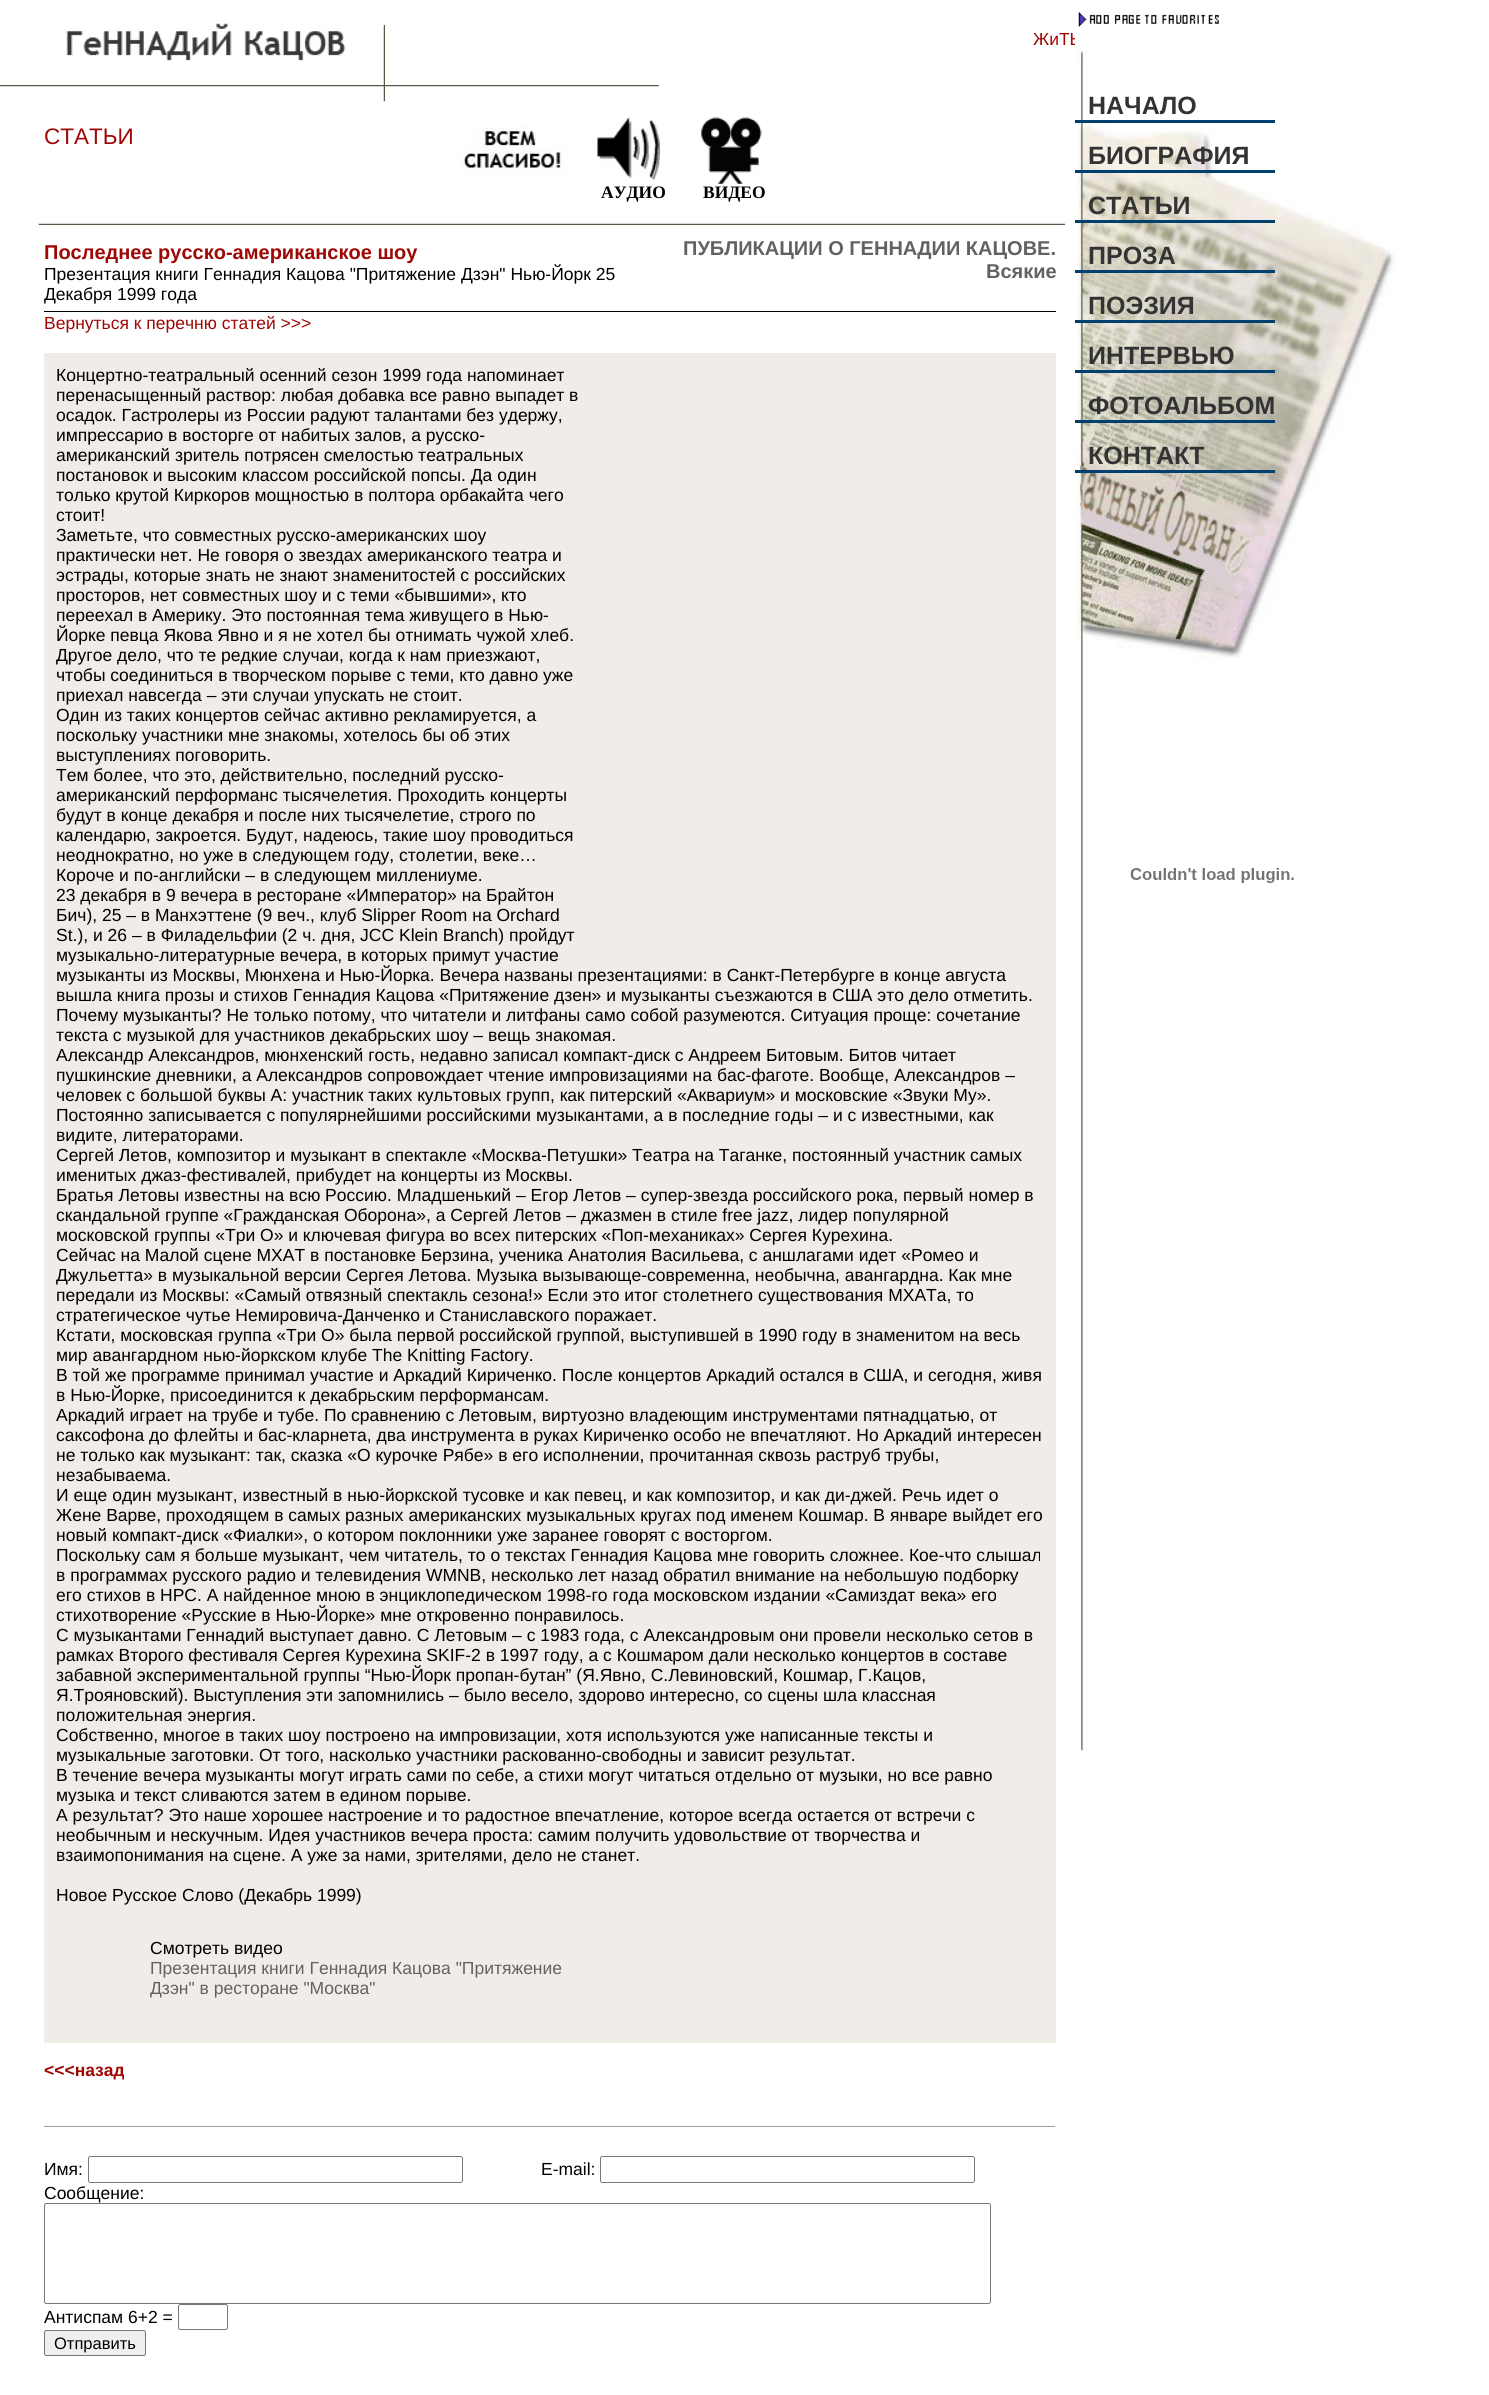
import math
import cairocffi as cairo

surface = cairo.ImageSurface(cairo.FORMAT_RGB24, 1489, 2395)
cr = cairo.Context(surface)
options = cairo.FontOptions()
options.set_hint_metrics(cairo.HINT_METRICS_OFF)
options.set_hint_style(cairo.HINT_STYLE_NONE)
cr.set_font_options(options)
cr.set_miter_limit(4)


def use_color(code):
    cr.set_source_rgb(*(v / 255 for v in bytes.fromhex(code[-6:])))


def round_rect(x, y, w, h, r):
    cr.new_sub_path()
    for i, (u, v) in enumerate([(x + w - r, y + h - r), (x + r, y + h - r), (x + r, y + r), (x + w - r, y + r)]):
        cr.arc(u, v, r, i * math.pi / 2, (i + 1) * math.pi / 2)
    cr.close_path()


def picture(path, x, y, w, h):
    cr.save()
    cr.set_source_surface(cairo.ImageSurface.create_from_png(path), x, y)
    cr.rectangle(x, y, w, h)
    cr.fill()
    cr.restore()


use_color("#ffffff")
cr.paint()
picture("img1.png", 1076, 50, 320, 1701)
picture("img2.png", 1078, 12, 141, 15)
picture("img3.png", 66, 23, 280, 38)
picture("img5.png", 0, 85, 659, 2)
picture("img4.png", 383, 25, 2, 77)
cr.save()
cr.rectangle(388, 29, 687, 20)
cr.clip()
cr.select_font_face("Liberation Sans")
cr.set_font_size(17.5)
use_color("#9e0704")
cr.move_to(1033, 45)
cr.show_text("ЖиТЬ")
cr.restore()
cr.select_font_face("Liberation Sans")
cr.set_font_size(22.5)
use_color("#9e0704")
cr.move_to(44, 144)
cr.show_text("СТАТЬИ")
picture("img6.png", 459, 126, 105, 49)
picture("img7.png", 597, 117, 63, 63)
picture("img8.png", 701, 117, 61, 67)
use_color("#00406e")
cr.rectangle(1075, 120, 200, 3)
cr.fill()
cr.select_font_face("Liberation Sans", cairo.FONT_SLANT_NORMAL, cairo.FONT_WEIGHT_BOLD)
cr.set_font_size(25)
use_color("#333333")
cr.move_to(1088, 114)
cr.show_text("НАЧАЛО")
use_color("#00406e")
cr.rectangle(1075, 170, 200, 3)
cr.fill()
use_color("#333333")
cr.move_to(1088, 164)
cr.show_text("БИОГРАФИЯ")
use_color("#00406e")
cr.rectangle(1075, 220, 200, 3)
cr.fill()
use_color("#333333")
cr.move_to(1088, 214)
cr.show_text("СТАТЬИ")
use_color("#00406e")
cr.rectangle(1075, 270, 200, 3)
cr.fill()
use_color("#333333")
cr.move_to(1088, 264)
cr.show_text("ПРОЗА")
use_color("#00406e")
cr.rectangle(1075, 320, 200, 3)
cr.fill()
use_color("#333333")
cr.move_to(1088, 314)
cr.show_text("ПОЭЗИЯ")
use_color("#00406e")
cr.rectangle(1075, 370, 200, 3)
cr.fill()
use_color("#333333")
cr.move_to(1088, 364)
cr.show_text("ИНТЕРВЬЮ")
use_color("#00406e")
cr.rectangle(1075, 420, 200, 3)
cr.fill()
use_color("#333333")
cr.move_to(1088, 414)
cr.show_text("ФОТОАЛЬБОМ")
use_color("#00406e")
cr.rectangle(1075, 470, 200, 3)
cr.fill()
use_color("#333333")
cr.move_to(1088, 464)
cr.show_text("КОНТАКТ")
picture("img9.png", 1130, 868, 164, 15)
cr.select_font_face("Liberation Serif", cairo.FONT_SLANT_NORMAL, cairo.FONT_WEIGHT_BOLD)
cr.set_font_size(17.5)
use_color("#000000")
cr.move_to(601, 198)
cr.show_text("АУДИО")
cr.move_to(703, 198)
cr.show_text("ВИДЕО")
picture("img10.png", 38, 223, 1027, 2)
cr.select_font_face("Liberation Sans", cairo.FONT_SLANT_NORMAL, cairo.FONT_WEIGHT_BOLD)
cr.set_font_size(20)
use_color("#9e0704")
cr.move_to(44, 259)
cr.show_text("Последнее русско-американское шоу")
cr.select_font_face("Liberation Sans")
cr.set_font_size(17.5)
use_color("#000000")
cr.move_to(44, 280)
cr.show_text("Презентация книги Геннадия Кацова \"Притяжение Дзэн\" Нью-Йорк 25")
cr.move_to(44, 300)
cr.show_text("Декабря 1999 года")
cr.select_font_face("Liberation Sans", cairo.FONT_SLANT_NORMAL, cairo.FONT_WEIGHT_BOLD)
cr.set_font_size(20)
use_color("#626262")
cr.move_to(683, 255)
cr.show_text("ПУБЛИКАЦИИ О ГЕННАДИИ КАЦОВЕ.")
cr.move_to(986, 278)
cr.show_text("Всякие")
use_color("#000000")
cr.rectangle(44, 311, 1012, 1)
cr.fill()
cr.select_font_face("Liberation Sans")
cr.set_font_size(17.5)
use_color("#9e0704")
cr.move_to(44, 329)
cr.show_text("Вернуться к перечню статей >>>")
use_color("#f0ece8")
cr.rectangle(44, 353, 1012, 1690)
cr.fill()
use_color("#000000")
cr.move_to(56, 381)
cr.show_text("Концертно-театральный осенний сезон 1999 года напоминает")
cr.move_to(56, 401)
cr.show_text("перенасыщенный раствор: любая добавка все равно выпадет в")
cr.move_to(56, 421)
cr.show_text("осадок. Гастролеры из России радуют талантами без удержу,")
cr.move_to(56, 441)
cr.show_text("импрессарио в восторге от набитых залов, а русско-")
cr.move_to(56, 461)
cr.show_text("американский зритель потрясен смелостью театральных")
cr.move_to(56, 481)
cr.show_text("постановок и высоким классом российской попсы. Да один")
cr.move_to(56, 501)
cr.show_text("только крутой Киркоров мощностью в полтора орбакайта чего")
cr.move_to(56, 521)
cr.show_text("стоит!")
cr.move_to(56, 541)
cr.show_text("Заметьте, что совместных русско-американских шоу")
cr.move_to(56, 561)
cr.show_text("практически нет. Не говоря о звездах американского театра и")
cr.move_to(56, 581)
cr.show_text("эстрады, которые знать не знают знаменитостей с российских")
cr.move_to(56, 601)
cr.show_text("просторов, нет совместных шоу и с теми «бывшими», кто")
cr.move_to(56, 621)
cr.show_text("переехал в Америку. Это постоянная тема живущего в Нью-")
cr.move_to(56, 641)
cr.show_text("Йорке певца Якова Явно и я не хотел бы отнимать чужой хлеб.")
cr.move_to(56, 661)
cr.show_text("Другое дело, что те редкие случаи, когда к нам приезжают,")
cr.move_to(56, 681)
cr.show_text("чтобы соединиться в творческом порыве с теми, кто давно уже")
cr.move_to(56, 701)
cr.show_text("приехал навсегда – эти случаи упускать не стоит.")
cr.move_to(56, 721)
cr.show_text("Один из таких концертов сейчас активно рекламируется, а")
cr.move_to(56, 741)
cr.show_text("поскольку участники мне знакомы, хотелось бы об этих")
cr.move_to(56, 761)
cr.show_text("выступлениях поговорить.")
cr.move_to(56, 781)
cr.show_text("Тем более, что это, действительно, последний русско-")
cr.move_to(56, 801)
cr.show_text("американский перформанс тысячелетия. Проходить концерты")
cr.move_to(56, 821)
cr.show_text("будут в конце декабря и после них тысячелетие, строго по")
cr.move_to(56, 841)
cr.show_text("календарю, закроется. Будут, надеюсь, такие шоу проводиться")
cr.move_to(56, 861)
cr.show_text("неоднократно, но уже в следующем году, столетии, веке…")
cr.move_to(56, 881)
cr.show_text("Короче и по-английски – в следующем миллениуме.")
cr.move_to(56, 901)
cr.show_text("23 декабря в 9 вечера в ресторане «Император» на Брайтон")
cr.move_to(56, 921)
cr.show_text("Бич), 25 – в Манхэттене (9 веч., клуб Slipper Room на Orchard")
cr.move_to(56, 941)
cr.show_text("St.), и 26 – в Филадельфии (2 ч. дня, JCC Klein Branch) пройдут")
cr.move_to(56, 961)
cr.show_text("музыкально-литературные вечера, в которых примут участие")
cr.move_to(56, 981)
cr.show_text("музыканты из Москвы, Мюнхена и Нью-Йорка. Вечера названы презентациями: в Санкт-Петербурге в конце августа")
cr.move_to(56, 1001)
cr.show_text("вышла книга прозы и стихов Геннадия Кацова «Притяжение дзен» и музыканты съезжаются в США это дело отметить.")
cr.move_to(56, 1021)
cr.show_text("Почему музыканты? Не только потому, что читатели и литфаны само собой разумеются. Ситуация проще: сочетание")
cr.move_to(56, 1041)
cr.show_text("текста с музыкой для участников декабрьских шоу – вещь знакомая.")
cr.move_to(56, 1061)
cr.show_text("Александр Александров, мюнхенский гость, недавно записал компакт-диск с Андреем Битовым. Битов читает")
cr.move_to(56, 1081)
cr.show_text("пушкинские дневники, а Александров сопровождает чтение импровизациями на бас-фаготе. Вообще, Александров –")
cr.move_to(56, 1101)
cr.show_text("человек с большой буквы А: участник таких культовых групп, как питерский «Аквариум» и московские «Звуки Му».")
cr.move_to(56, 1121)
cr.show_text("Постоянно записывается с популярнейшими российскими музыкантами, а в последние годы – и с известными, как")
cr.move_to(56, 1141)
cr.show_text("видите, литераторами.")
cr.move_to(56, 1161)
cr.show_text("Сергей Летов, композитор и музыкант в спектакле «Москва-Петушки» Театра на Таганке, постоянный участник самых")
cr.move_to(56, 1181)
cr.show_text("именитых джаз-фестивалей, прибудет на концерты из Москвы.")
cr.move_to(56, 1201)
cr.show_text("Братья Летовы известны на всю Россию. Младшенький – Егор Летов – супер-звезда российского рока, первый номер в")
cr.move_to(56, 1221)
cr.show_text("скандальной группе «Гражданская Оборона», а Сергей Летов – джазмен в стиле free jazz, лидер популярной")
cr.move_to(56, 1241)
cr.show_text("московской группы «Три О» и ключевая фигура во всех питерских «Поп-механиках» Сергея Курехина.")
cr.move_to(56, 1261)
cr.show_text("Сейчас на Малой сцене МХАТ в постановке Берзина, ученика Анатолия Васильева, с аншлагами идет «Ромео и")
cr.move_to(56, 1281)
cr.show_text("Джульетта» в музыкальной версии Сергея Летова. Музыка вызывающе-современна, необычна, авангардна. Как мне")
cr.move_to(56, 1301)
cr.show_text("передали из Москвы: «Самый отвязный спектакль сезона!» Если это итог столетнего существования МХАТа, то")
cr.move_to(56, 1321)
cr.show_text("стратегическое чутье Немировича-Данченко и Станиславского поражает.")
cr.move_to(56, 1341)
cr.show_text("Кстати, московская группа «Три О» была первой российской группой, выступившей в 1990 году в знаменитом на весь")
cr.move_to(56, 1361)
cr.show_text("мир авангардном нью-йоркском клубе The Knitting Factory.")
cr.move_to(56, 1381)
cr.show_text("В той же программе принимал участие и Аркадий Кириченко. После концертов Аркадий остался в США, и сегодня, живя")
cr.move_to(56, 1401)
cr.show_text("в Нью-Йорке, присоединится к декабрьским перформансам.")
cr.move_to(56, 1421)
cr.show_text("Аркадий играет на трубе и тубе. По сравнению с Летовым, виртуозно владеющим инструментами пятнадцатью, от")
cr.move_to(56, 1441)
cr.show_text("саксофона до флейты и бас-кларнета, два инструмента в руках Кириченко особо не впечатляют. Но Аркадий интересен")
cr.move_to(56, 1461)
cr.show_text("не только как музыкант: так, сказка «О курочке Рябе» в его исполнении, прочитанная сквозь раструб трубы,")
cr.move_to(56, 1481)
cr.show_text("незабываема.")
cr.move_to(56, 1501)
cr.show_text("И еще один музыкант, известный в нью-йоркской тусовке и как певец, и как композитор, и как ди-джей. Речь идет о")
cr.move_to(56, 1521)
cr.show_text("Жене Варве, проходящем в самых разных американских музыкальных кругах под именем Кошмар. В январе выйдет его")
cr.move_to(56, 1541)
cr.show_text("новый компакт-диск «Фиалки», о котором поклонники уже заранее говорят с восторгом.")
cr.move_to(56, 1561)
cr.show_text("Поскольку сам я больше музыкант, чем читатель, то о текстах Геннадия Кацова мне говорить сложнее. Кое-что слышал")
cr.move_to(56, 1581)
cr.show_text("в программах русского радио и телевидения WMNB, несколько лет назад обратил внимание на небольшую подборку")
cr.move_to(56, 1601)
cr.show_text("его стихов в НРС. А найденное мною в энциклопедическом 1998-го года московском издании «Самиздат века» его")
cr.move_to(56, 1621)
cr.show_text("стихотворение «Русские в Нью-Йорке» мне откровенно понравилось.")
cr.move_to(56, 1641)
cr.show_text("С музыкантами Геннадий выступает давно. С Летовым – с 1983 года, с Александровым они провели несколько сетов в")
cr.move_to(56, 1661)
cr.show_text("рамках Второго фестиваля Сергея Курехина SKIF-2 в 1997 году, а с Кошмаром дали несколько концертов в составе")
cr.move_to(56, 1681)
cr.show_text("забавной экспериментальной группы “Нью-Йорк пропан-бутан” (Я.Явно, С.Левиновский, Кошмар, Г.Кацов,")
cr.move_to(56, 1701)
cr.show_text("Я.Трояновский). Выступления эти запомнились – было весело, здорово интересно, со сцены шла классная")
cr.move_to(56, 1721)
cr.show_text("положительная энергия.")
cr.move_to(56, 1741)
cr.show_text("Собственно, многое в таких шоу построено на импровизации, хотя используются уже написанные тексты и")
cr.move_to(56, 1761)
cr.show_text("музыкальные заготовки. От того, насколько участники раскованно-свободны и зависит результат.")
cr.move_to(56, 1781)
cr.show_text("В течение вечера музыканты могут играть сами по себе, а стихи могут читаться отдельно от музыки, но все равно")
cr.move_to(56, 1801)
cr.show_text("музыка и текст сливаются затем в едином порыве.")
cr.move_to(56, 1821)
cr.show_text("А результат? Это наше хорошее настроение и то радостное впечатление, которое всегда остается от встречи с")
cr.move_to(56, 1841)
cr.show_text("необычным и нескучным. Идея участников вечера проста: самим получить удовольствие от творчества и")
cr.move_to(56, 1861)
cr.show_text("взаимопонимания на сцене. А уже за нами, зрителями, дело не станет.")
cr.move_to(56, 1901)
cr.show_text("Новое Русское Слово (Декабрь 1999)")
cr.move_to(150, 1954)
cr.show_text("Смотреть видео")
use_color("#626262")
cr.move_to(150, 1974)
cr.show_text("Презентация книги Геннадия Кацова \"Притяжение")
cr.move_to(150, 1994)
cr.show_text("Дзэн\" в ресторане \"Москва\"")
cr.select_font_face("Liberation Sans", cairo.FONT_SLANT_NORMAL, cairo.FONT_WEIGHT_BOLD)
use_color("#9e0704")
cr.move_to(44, 2076)
cr.show_text("<<<назад")
use_color("#9f9f9f")
cr.rectangle(44, 2126, 1012, 1)
cr.fill()
use_color("#eeeeee")
cr.rectangle(1055, 2126, 1, 1)
cr.fill()
cr.select_font_face("Liberation Sans")
use_color("#000000")
cr.move_to(44, 2175)
cr.show_text("Имя:")
round_rect(88.5, 2156.5, 374, 26, 2)
use_color("#767676")
cr.set_line_width(1)
cr.stroke()
use_color("#000000")
cr.move_to(541, 2175)
cr.show_text("E-mail:")
round_rect(600.5, 2156.5, 374, 26, 2)
use_color("#767676")
cr.stroke()
use_color("#000000")
cr.move_to(44, 2199)
cr.show_text("Сообщение:")
round_rect(44.5, 2203.5, 946, 100, 2)
use_color("#767676")
cr.stroke()
use_color("#000000")
cr.move_to(44, 2323)
cr.show_text("Антиспам 6+2 =")
round_rect(178.5, 2304.5, 49, 25, 2)
use_color("#767676")
cr.stroke()
use_color("#efefef")
round_rect(44.5, 2330.5, 101, 25, 2)
cr.fill_preserve()
use_color("#767676")
cr.stroke()
cr.set_font_size(16.5)
use_color("#000000")
cr.move_to(54, 2349)
cr.show_text("Отправить")
surface.write_to_png("result.png")
